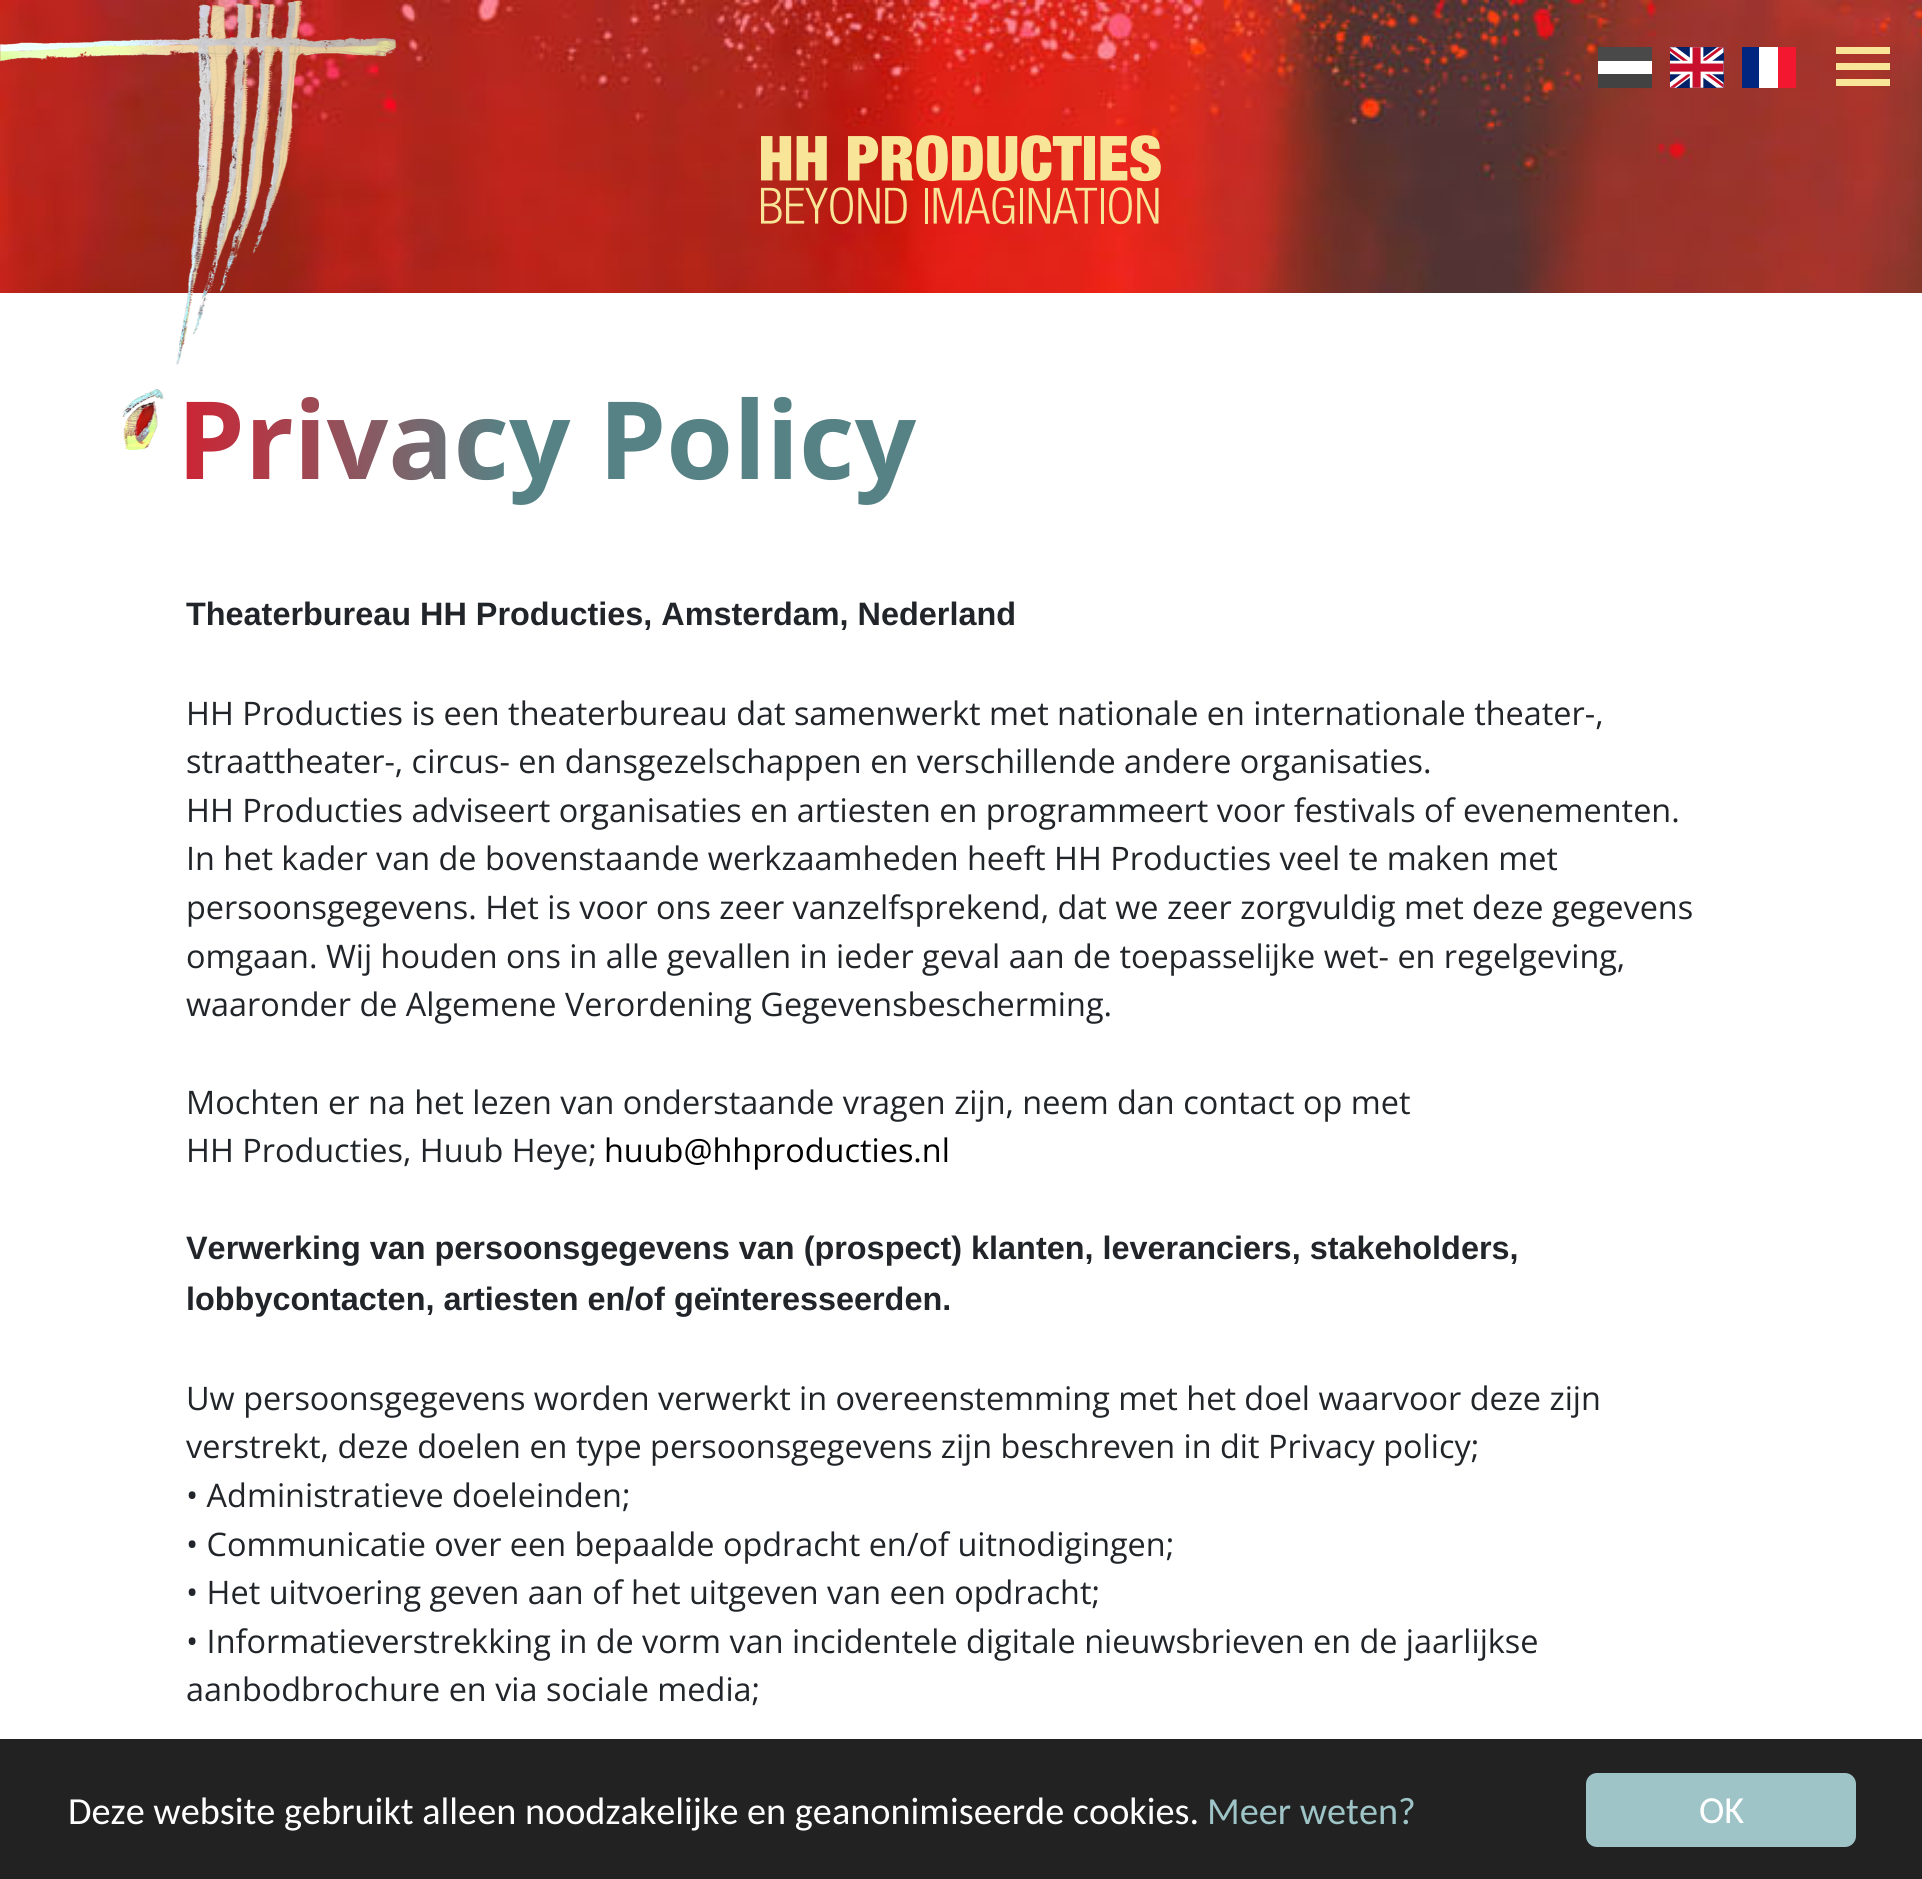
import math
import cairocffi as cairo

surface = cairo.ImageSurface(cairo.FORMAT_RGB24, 1922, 1879)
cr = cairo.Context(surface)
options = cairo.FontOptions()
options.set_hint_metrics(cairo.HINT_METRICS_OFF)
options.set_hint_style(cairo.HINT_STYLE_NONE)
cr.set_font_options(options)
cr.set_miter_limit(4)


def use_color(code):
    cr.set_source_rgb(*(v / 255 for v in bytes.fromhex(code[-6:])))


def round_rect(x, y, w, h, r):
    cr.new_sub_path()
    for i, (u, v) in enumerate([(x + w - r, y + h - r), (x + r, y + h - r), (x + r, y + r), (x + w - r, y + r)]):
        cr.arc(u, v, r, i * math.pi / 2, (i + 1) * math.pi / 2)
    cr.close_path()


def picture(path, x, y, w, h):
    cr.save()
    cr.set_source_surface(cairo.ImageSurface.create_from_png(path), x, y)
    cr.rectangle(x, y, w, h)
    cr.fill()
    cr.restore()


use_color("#ffffff")
cr.paint()
picture("img1.png", 0, 0, 1922, 293)
cr.select_font_face("Open Sans", cairo.FONT_SLANT_NORMAL, cairo.FONT_WEIGHT_BOLD)
cr.set_font_size(108)
gradient = cairo.LinearGradient(177, 440, 916, 440)
gradient.add_color_stop_rgba(0, 0.808, 0.137, 0.2, 1)
gradient.add_color_stop_rgba(0.45, 0.337, 0.51, 0.522, 1)
gradient.add_color_stop_rgba(1, 0.337, 0.51, 0.522, 1)
cr.set_source(gradient)
cr.move_to(177, 479)
cr.show_text("Privacy Policy")
picture("img2.png", 0, 0, 397, 450)
use_color("#f8e598")
cr.rectangle(1836, 63, 54, 7)
cr.fill()
cr.rectangle(1836, 47, 54, 7)
cr.fill()
cr.rectangle(1836, 79, 54, 7)
cr.fill()
picture("img3.png", 761, 135, 400, 90)
use_color("#494949")
cr.rectangle(1598, 47, 54, 14)
cr.fill()
use_color("#ffffff")
cr.rectangle(1598, 61, 54, 13)
cr.fill()
use_color("#424242")
cr.rectangle(1598, 74, 54, 14)
cr.fill()
picture("img4.png", 1670, 47, 54, 41)
use_color("#00267f")
cr.rectangle(1742, 47, 17, 41)
cr.fill()
use_color("#ffffff")
cr.rectangle(1759, 47, 19, 41)
cr.fill()
use_color("#f31830")
cr.rectangle(1778, 47, 18, 41)
cr.fill()
cr.select_font_face("Liberation Sans", cairo.FONT_SLANT_NORMAL, cairo.FONT_WEIGHT_BOLD)
cr.set_font_size(32.4)
use_color("#212529")
cr.move_to(186, 625)
cr.show_text("Theaterbureau HH Producties, Amsterdam, Nederland")
cr.select_font_face("Open Sans")
cr.move_to(186, 725)
cr.show_text("HH Producties is een theaterbureau dat samenwerkt met nationale en internationale theater-,")
cr.move_to(186, 773)
cr.show_text("straattheater-, circus- en dansgezelschappen en verschillende andere organisaties.")
cr.move_to(186, 822)
cr.show_text("HH Producties adviseert organisaties en artiesten en programmeert voor festivals of evenementen.")
cr.move_to(186, 870)
cr.show_text("In het kader van de bovenstaande werkzaamheden heeft HH Producties veel te maken met")
cr.move_to(186, 919)
cr.show_text("persoonsgegevens. Het is voor ons zeer vanzelfsprekend, dat we zeer zorgvuldig met deze gegevens")
cr.move_to(186, 968)
cr.show_text("omgaan. Wij houden ons in alle gevallen in ieder geval aan de toepasselijke wet- en regelgeving,")
cr.move_to(186, 1016)
cr.show_text("waaronder de Algemene Verordening Gegevensbescherming.")
cr.move_to(186, 1114)
cr.show_text("Mochten er na het lezen van onderstaande vragen zijn, neem dan contact op met")
cr.move_to(186, 1162)
cr.show_text("HH Producties, Huub Heye;")
use_color("#000000")
cr.move_to(604, 1162)
cr.show_text("huub@hhproducties.nl")
cr.select_font_face("Liberation Sans", cairo.FONT_SLANT_NORMAL, cairo.FONT_WEIGHT_BOLD)
use_color("#212529")
cr.move_to(186, 1259)
cr.show_text("Verwerking van persoonsgegevens van (prospect) klanten, leveranciers, stakeholders,")
cr.move_to(186, 1310)
cr.show_text("lobbycontacten, artiesten en/of geïnteresseerden.")
cr.select_font_face("Open Sans")
cr.move_to(186, 1410)
cr.show_text("Uw persoonsgegevens worden verwerkt in overeenstemming met het doel waarvoor deze zijn")
cr.move_to(186, 1458)
cr.show_text("verstrekt, deze doelen en type persoonsgegevens zijn beschreven in dit Privacy policy;")
cr.move_to(186, 1507)
cr.show_text("• Administratieve doeleinden;")
cr.move_to(186, 1556)
cr.show_text("• Communicatie over een bepaalde opdracht en/of uitnodigingen;")
cr.move_to(186, 1604)
cr.show_text("• Het uitvoering geven aan of het uitgeven van een opdracht;")
cr.move_to(186, 1653)
cr.show_text("• Informatieverstrekking in de vorm van incidentele digitale nieuwsbrieven en de jaarlijkse")
cr.move_to(186, 1701)
cr.show_text("aanbodbrochure en via sociale media;")
use_color("#222222")
cr.rectangle(0, 1739, 1922, 140)
cr.fill()
cr.select_font_face("Carlito")
cr.set_font_size(38.25)
use_color("#ffffff")
cr.move_to(68, 1824)
cr.show_text("Deze website gebruikt alleen noodzakelijke en geanonimiseerde cookies.")
use_color("#9ec4c7")
cr.move_to(1207, 1824)
cr.show_text("Meer weten?")
round_rect(1586, 1773, 270, 74, 11)
cr.fill()
use_color("#ffffff")
cr.move_to(1699, 1823)
cr.show_text("OK")
surface.write_to_png("result.png")
